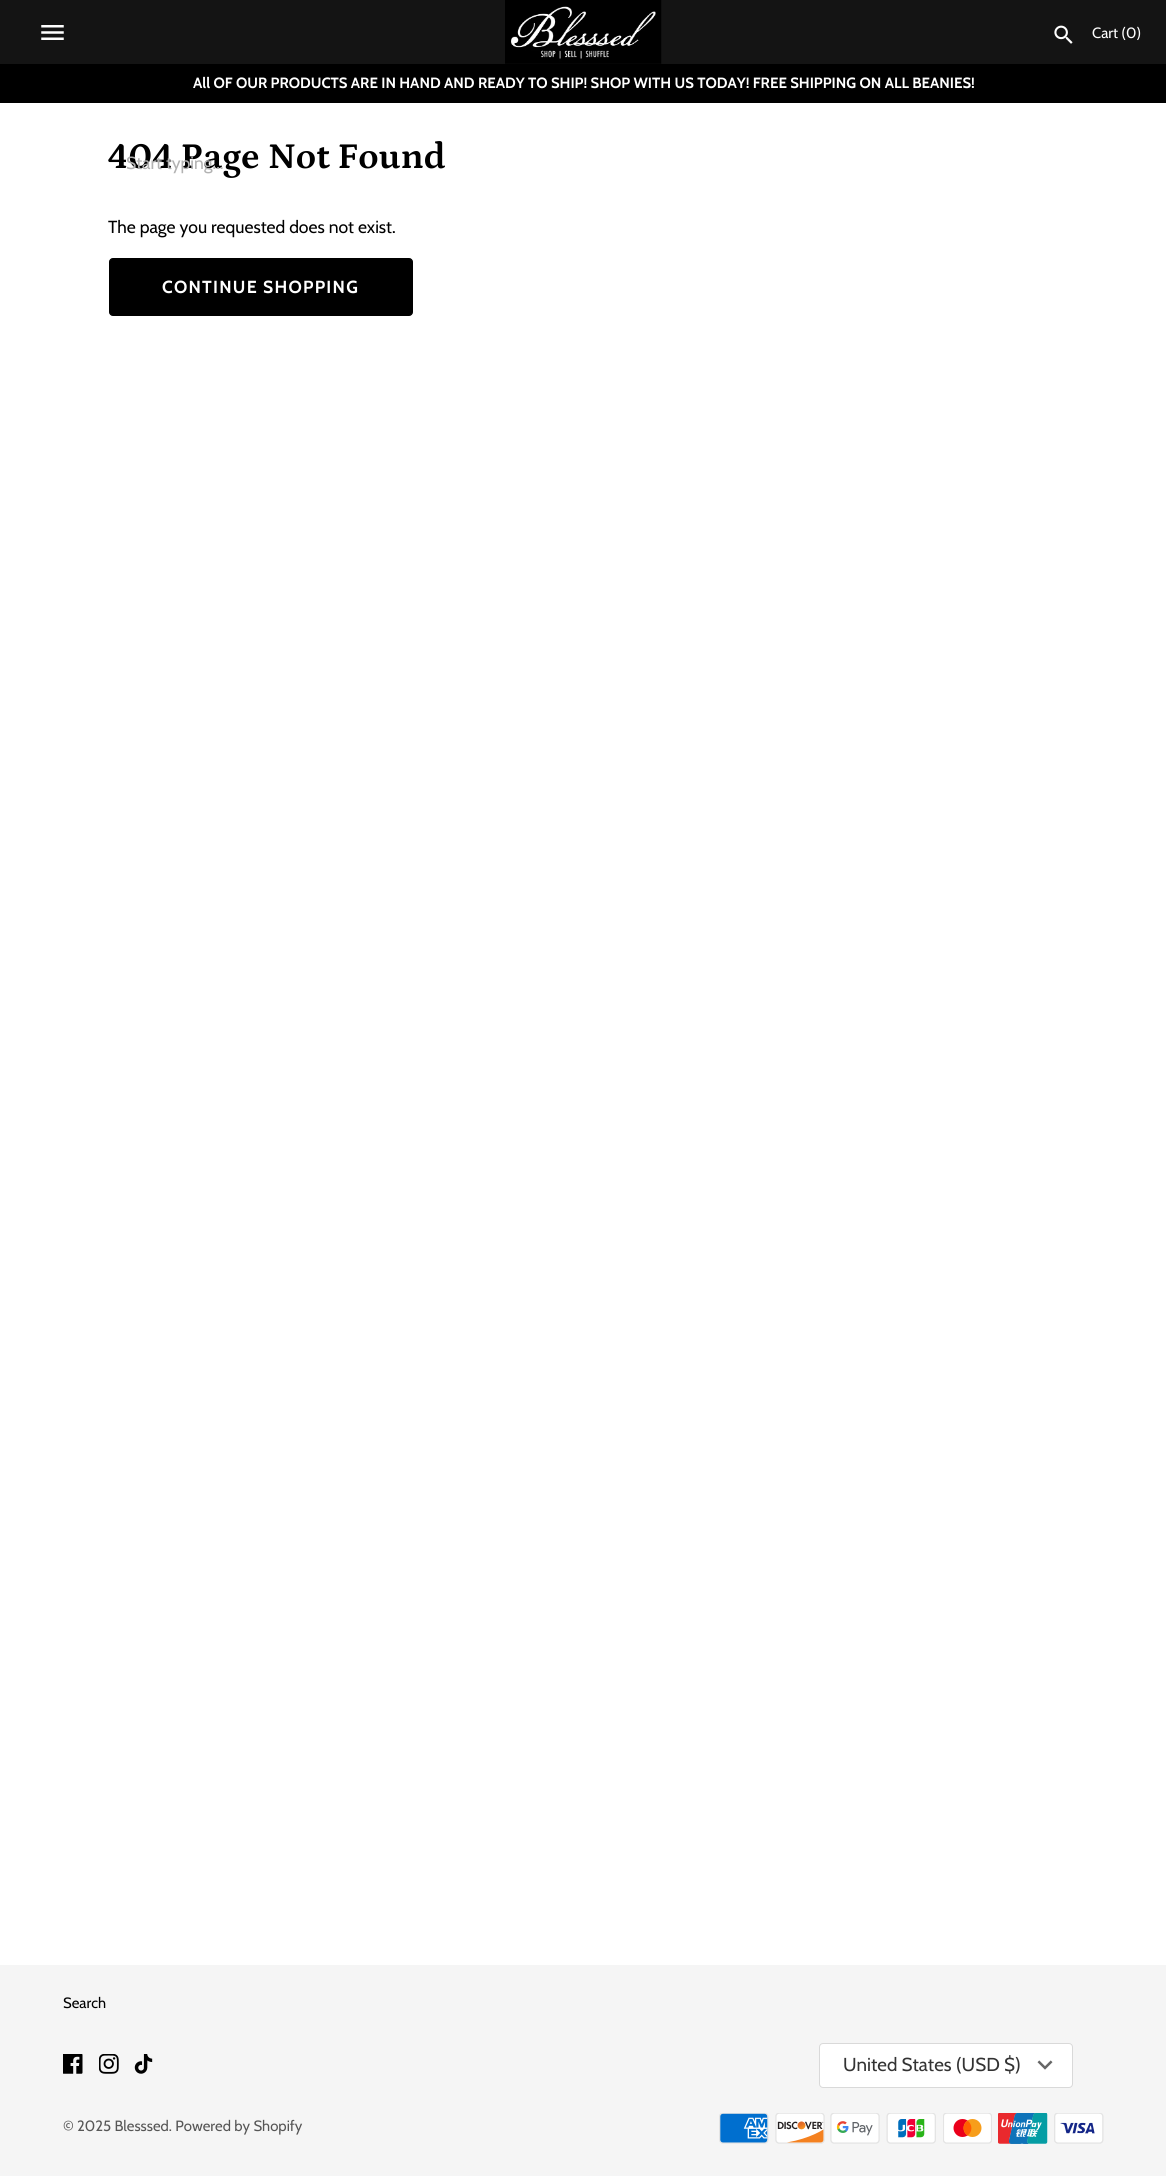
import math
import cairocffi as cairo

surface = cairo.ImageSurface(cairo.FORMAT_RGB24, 1166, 2176)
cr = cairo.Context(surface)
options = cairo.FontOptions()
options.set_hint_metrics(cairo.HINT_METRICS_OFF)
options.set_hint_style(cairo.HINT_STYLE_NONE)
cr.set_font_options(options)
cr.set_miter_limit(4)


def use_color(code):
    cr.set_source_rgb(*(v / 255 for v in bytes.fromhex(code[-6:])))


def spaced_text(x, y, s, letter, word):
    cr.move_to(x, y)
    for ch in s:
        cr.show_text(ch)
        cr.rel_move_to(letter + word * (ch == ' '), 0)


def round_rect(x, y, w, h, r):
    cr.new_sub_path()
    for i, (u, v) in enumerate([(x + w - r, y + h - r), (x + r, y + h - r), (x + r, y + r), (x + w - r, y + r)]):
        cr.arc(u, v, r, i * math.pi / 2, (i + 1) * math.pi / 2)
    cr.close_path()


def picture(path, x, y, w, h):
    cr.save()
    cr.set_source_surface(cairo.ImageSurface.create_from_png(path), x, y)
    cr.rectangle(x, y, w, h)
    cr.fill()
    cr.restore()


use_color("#ffffff")
cr.paint()
use_color("#141414")
cr.rectangle(0, 0, 1166, 64)
cr.fill()
picture("img1.png", 41, 25, 23, 15)
picture("img2.png", 505, 0, 157, 64)
picture("img3.png", 1054, 25, 19, 19)
cr.select_font_face("Cabin")
cr.set_font_size(14.88)
use_color("#ffffff")
cr.move_to(1092, 38)
cr.show_text("Cart (0)")
use_color("#000000")
cr.rectangle(0, 64, 1166, 39)
cr.fill()
cr.select_font_face("Cabin", cairo.FONT_SLANT_NORMAL, cairo.FONT_WEIGHT_BOLD)
use_color("#ffffff")
cr.move_to(193, 88)
cr.show_text("All OF OUR PRODUCTS ARE IN HAND AND READY TO SHIP! SHOP WITH US TODAY! FREE SHIPPING ON ALL BEANIES!")
cr.select_font_face("Petrona", cairo.FONT_SLANT_NORMAL, cairo.FONT_WEIGHT_BOLD)
cr.set_font_size(36.75)
use_color("#000000")
cr.move_to(108, 168)
cr.show_text("404 Page Not Found")
cr.select_font_face("Cabin")
cr.set_font_size(17.5)
use_color("#b2b2b2")
cr.move_to(126, 169)
cr.show_text("Start typing...")
use_color("#000000")
cr.move_to(108, 233)
cr.show_text("The page you requested does not exist.")
round_rect(109.5, 258.5, 303, 57, 3.5)
cr.fill_preserve()
cr.set_line_width(1)
cr.stroke()
cr.select_font_face("Cabin", cairo.FONT_SLANT_NORMAL, cairo.FONT_WEIGHT_BOLD)
use_color("#ffffff")
spaced_text(162, 293, "CONTINUE SHOPPING", 1.25, 0)
use_color("#f5f5f5")
cr.rectangle(0, 1965, 1166, 211)
cr.fill()
cr.select_font_face("Cabin")
cr.set_font_size(14.88)
use_color("#000000")
cr.move_to(63, 2008)
cr.show_text("Search")
picture("img4.png", 63, 2054, 20, 20)
picture("img5.png", 99, 2054, 20, 20)
picture("img6.png", 134, 2054, 19, 20)
use_color("#ffffff")
round_rect(819, 2043, 254, 45, 4)
cr.fill()
round_rect(819.5, 2043.5, 253, 44, 3.5)
cr.set_source_rgba(0, 0, 0, 0.15)
cr.stroke()
cr.set_font_size(18.75)
use_color("#333333")
cr.move_to(843, 2071)
cr.show_text("United States (USD $)")
picture("img7.png", 1037, 2060, 16, 10)
cr.set_font_size(14.88)
use_color("#565656")
cr.move_to(63, 2131)
cr.show_text("© 2025 Blesssed. Powered by Shopify")
picture("img8.png", 719, 2113, 50, 31)
picture("img9.png", 775, 2113, 50, 31)
picture("img10.png", 830, 2113, 50, 31)
picture("img11.png", 886, 2113, 50, 31)
picture("img12.png", 943, 2113, 49, 31)
picture("img13.png", 998, 2113, 50, 31)
picture("img14.png", 1054, 2113, 50, 31)
surface.write_to_png("result.png")
